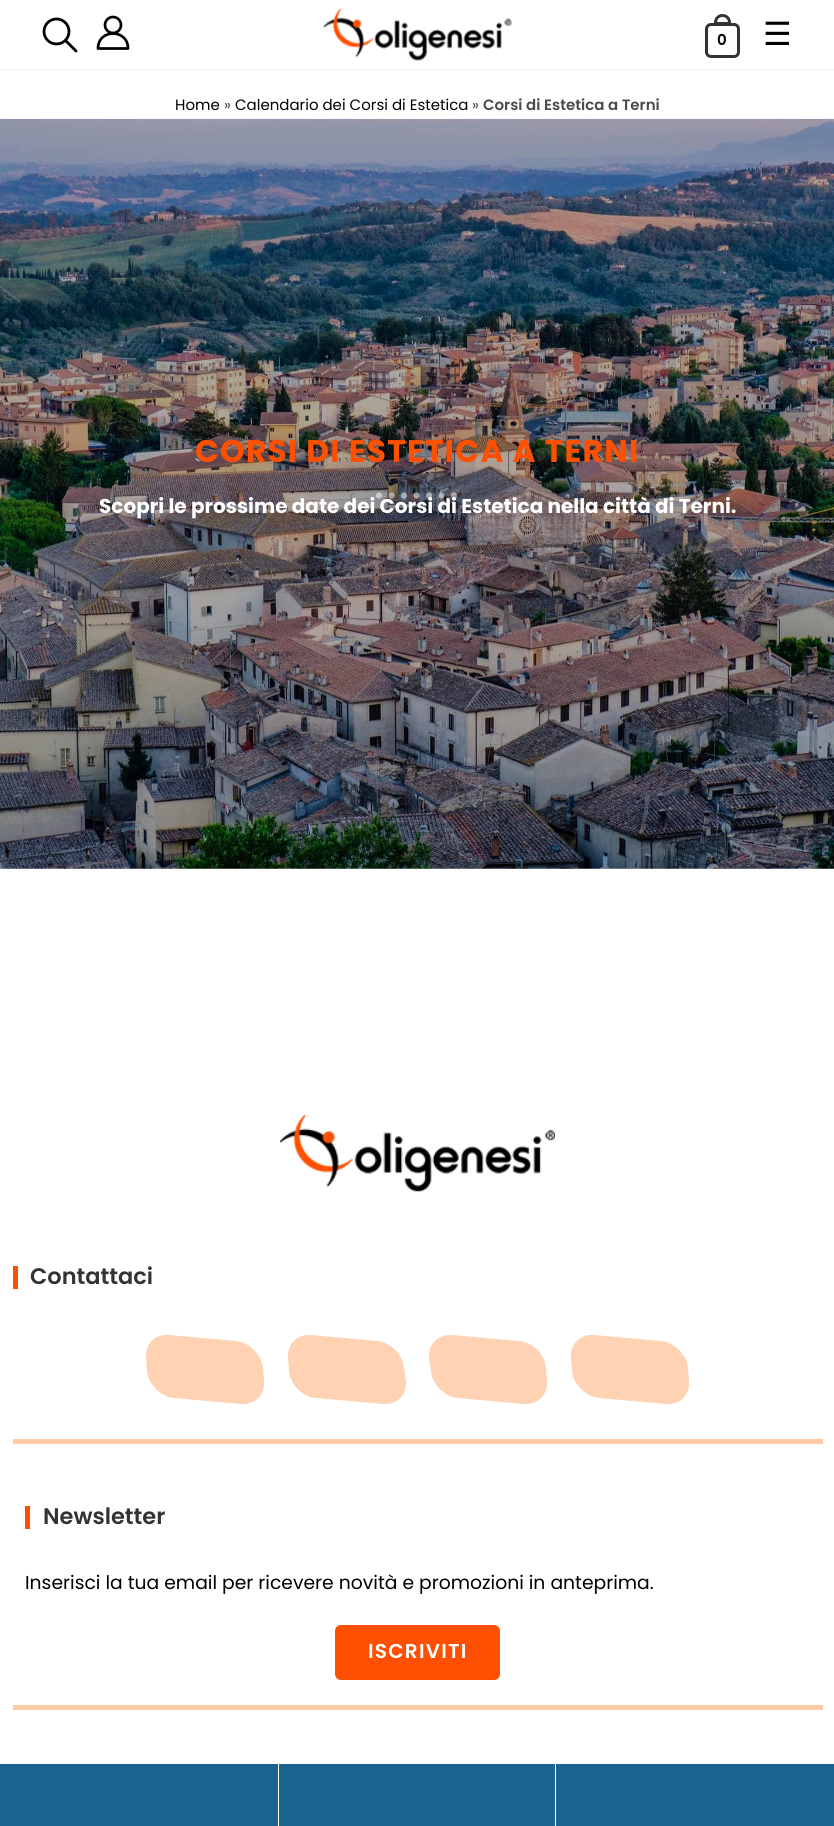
import math
import cairocffi as cairo

surface = cairo.ImageSurface(cairo.FORMAT_RGB24, 834, 1826)
cr = cairo.Context(surface)
options = cairo.FontOptions()
options.set_hint_metrics(cairo.HINT_METRICS_OFF)
options.set_hint_style(cairo.HINT_STYLE_NONE)
cr.set_font_options(options)
cr.set_miter_limit(4)


def use_color(code):
    cr.set_source_rgb(*(v / 255 for v in bytes.fromhex(code[-6:])))


def spaced_text(x, y, s, letter, word):
    cr.move_to(x, y)
    for ch in s:
        cr.show_text(ch)
        cr.rel_move_to(letter + word * (ch == ' '), 0)


def round_rect(x, y, w, h, r):
    cr.new_sub_path()
    for i, (u, v) in enumerate([(x + w - r, y + h - r), (x + r, y + h - r), (x + r, y + r), (x + w - r, y + r)]):
        cr.arc(u, v, r, i * math.pi / 2, (i + 1) * math.pi / 2)
    cr.close_path()


def picture(path, x, y, w, h):
    cr.save()
    cr.set_source_surface(cairo.ImageSurface.create_from_png(path), x, y)
    cr.rectangle(x, y, w, h)
    cr.fill()
    cr.restore()


use_color("#ffffff")
cr.paint()
use_color("#f1f1f1")
cr.rectangle(0, 69, 834, 1)
cr.fill()
cr.arc(56.5, 31.5, 12.5, 0, 2 * math.pi)
use_color("#000000")
cr.set_line_width(2.8)
cr.stroke()
cr.new_path()
cr.move_to(65.5, 40.5)
cr.line_to(76, 51)
cr.set_line_cap(cairo.LINE_CAP_ROUND)
cr.set_line_join(cairo.LINE_JOIN_ROUND)
cr.stroke()
cr.arc(113, 25, 8, 0, 2 * math.pi)
cr.set_line_width(2.7)
cr.set_line_cap(cairo.LINE_CAP_BUTT)
cr.set_line_join(cairo.LINE_JOIN_MITER)
cr.stroke()
cr.new_path()
cr.move_to(98, 48.5)
cr.curve_to(98, 28.5, 128, 28.5, 128, 48.5)
cr.close_path()
cr.set_line_cap(cairo.LINE_CAP_ROUND)
cr.set_line_join(cairo.LINE_JOIN_ROUND)
cr.stroke()
picture("img1.png", 323, 8, 189, 53)
round_rect(706.5, 24.5, 32, 32, 4.5)
use_color("#333333")
cr.set_line_width(3)
cr.set_line_cap(cairo.LINE_CAP_BUTT)
cr.set_line_join(cairo.LINE_JOIN_MITER)
cr.stroke()
cr.new_path()
cr.move_to(722.5, 15.5)
cr.curve_to(726.5, 15.5, 729.5, 18.5, 729.5, 22.5)
cr.line_to(729.5, 23.5)
cr.line_to(715.5, 23.5)
cr.line_to(715.5, 22.5)
cr.curve_to(715.5, 18.5, 718.5, 15.5, 722.5, 15.5)
cr.close_path()
cr.stroke()
cr.select_font_face("Poppins SemiBold")
cr.set_font_size(15)
use_color("#000000")
spaced_text(717, 45, "0", 1, 0)
cr.select_font_face("DejaVu Sans")
cr.set_font_size(32)
spaced_text(763, 45, "☰", 1, 0)
cr.select_font_face("Poppins")
cr.set_font_size(15)
cr.move_to(175, 110)
cr.show_text("Home")
use_color("#4a4a4a")
cr.move_to(224, 110)
cr.show_text("»")
use_color("#000000")
cr.move_to(235, 110)
cr.show_text("Calendario dei Corsi di Estetica")
use_color("#4a4a4a")
cr.move_to(472, 110)
cr.show_text("»")
cr.select_font_face("Poppins SemiBold")
cr.move_to(483, 110)
cr.show_text("Corsi di Estetica a Terni")
picture("img2.png", 0, 118, 834, 751)
cr.select_font_face("Poppins", cairo.FONT_SLANT_NORMAL, cairo.FONT_WEIGHT_BOLD)
cr.set_font_size(31.25)
use_color("#fe5000")
spaced_text(195, 462, "CORSI DI ESTETICA A TERNI", 1.25, 0)
cr.new_path()
cr.move_to(379, 495.5)
cr.line_to(456, 495.5)
cr.set_source_rgba(1, 1, 1, 0.5)
cr.set_line_width(6.2)
cr.set_line_cap(cairo.LINE_CAP_ROUND)
cr.set_dash([0, 12.5])
cr.stroke()
cr.set_font_size(20)
use_color("#ffffff")
cr.move_to(99, 513)
cr.show_text("Scopri le prossime date dei Corsi di Estetica nella città di Terni.")
use_color("#1a658f")
cr.rectangle(0, 1764, 834, 62)
cr.fill()
use_color("#ffffff")
cr.rectangle(278, 1764, 1, 62)
cr.fill()
cr.rectangle(555, 1764, 1, 62)
cr.fill()
picture("img3.png", 280, 1115, 275, 77)
use_color("#fe5000")
cr.rectangle(13, 1266, 5, 23)
cr.fill()
cr.select_font_face("Poppins SemiBold")
cr.set_font_size(22.5)
use_color("#333333")
cr.move_to(30, 1284)
cr.show_text("Contattaci")
use_color("#ffd2b3")
cr.new_path()
cr.move_to(169, 1335)
cr.line_to(236, 1341)
cr.curve_to(249, 1342, 262, 1355, 263, 1368)
cr.line_to(264, 1381)
cr.curve_to(265, 1395, 255, 1405, 241, 1404)
cr.line_to(174, 1398)
cr.curve_to(161, 1397, 148, 1384, 147, 1371)
cr.line_to(146, 1358)
cr.curve_to(145, 1344, 155, 1334, 169, 1335)
cr.close_path()
cr.fill()
cr.new_path()
cr.move_to(311, 1335)
cr.line_to(377, 1341)
cr.curve_to(391, 1342, 403, 1355, 404, 1368)
cr.line_to(406, 1381)
cr.curve_to(407, 1395, 397, 1405, 383, 1404)
cr.line_to(316, 1398)
cr.curve_to(302, 1397, 290, 1384, 289, 1371)
cr.line_to(288, 1358)
cr.curve_to(287, 1344, 297, 1334, 311, 1335)
cr.close_path()
cr.fill()
cr.new_path()
cr.move_to(452, 1335)
cr.line_to(519, 1341)
cr.curve_to(533, 1342, 545, 1355, 546, 1368)
cr.line_to(547, 1381)
cr.curve_to(548, 1395, 538, 1405, 524, 1404)
cr.line_to(458, 1398)
cr.curve_to(444, 1397, 432, 1384, 431, 1371)
cr.line_to(429, 1358)
cr.curve_to(428, 1344, 438, 1334, 452, 1335)
cr.close_path()
cr.fill()
cr.new_path()
cr.move_to(594, 1335)
cr.line_to(661, 1341)
cr.curve_to(674, 1342, 687, 1355, 688, 1368)
cr.line_to(689, 1381)
cr.curve_to(690, 1395, 680, 1405, 666, 1404)
cr.line_to(599, 1398)
cr.curve_to(586, 1397, 573, 1384, 572, 1371)
cr.line_to(571, 1358)
cr.curve_to(570, 1344, 580, 1334, 594, 1335)
cr.close_path()
cr.fill()
use_color("#ffcba6")
cr.rectangle(13, 1439, 810, 5)
cr.fill()
cr.rectangle(13, 1705, 810, 5)
cr.fill()
use_color("#fe5000")
cr.rectangle(25, 1506, 5, 23)
cr.fill()
use_color("#333333")
cr.move_to(43, 1524)
cr.show_text("Newsletter")
cr.select_font_face("Poppins")
cr.set_font_size(18.75)
use_color("#000000")
cr.move_to(25, 1589)
cr.show_text("Inserisci la tua email per ricevere novità e promozioni in anteprima.")
use_color("#fe5000")
round_rect(336.5, 1626.5, 162, 52, 4.5)
cr.fill_preserve()
cr.set_line_width(3)
cr.set_line_cap(cairo.LINE_CAP_BUTT)
cr.set_dash([])
cr.stroke()
cr.select_font_face("Poppins SemiBold")
cr.set_font_size(20)
use_color("#ffffff")
spaced_text(368, 1658, "ISCRIVITI", 1.25, 0)
surface.write_to_png("result.png")
